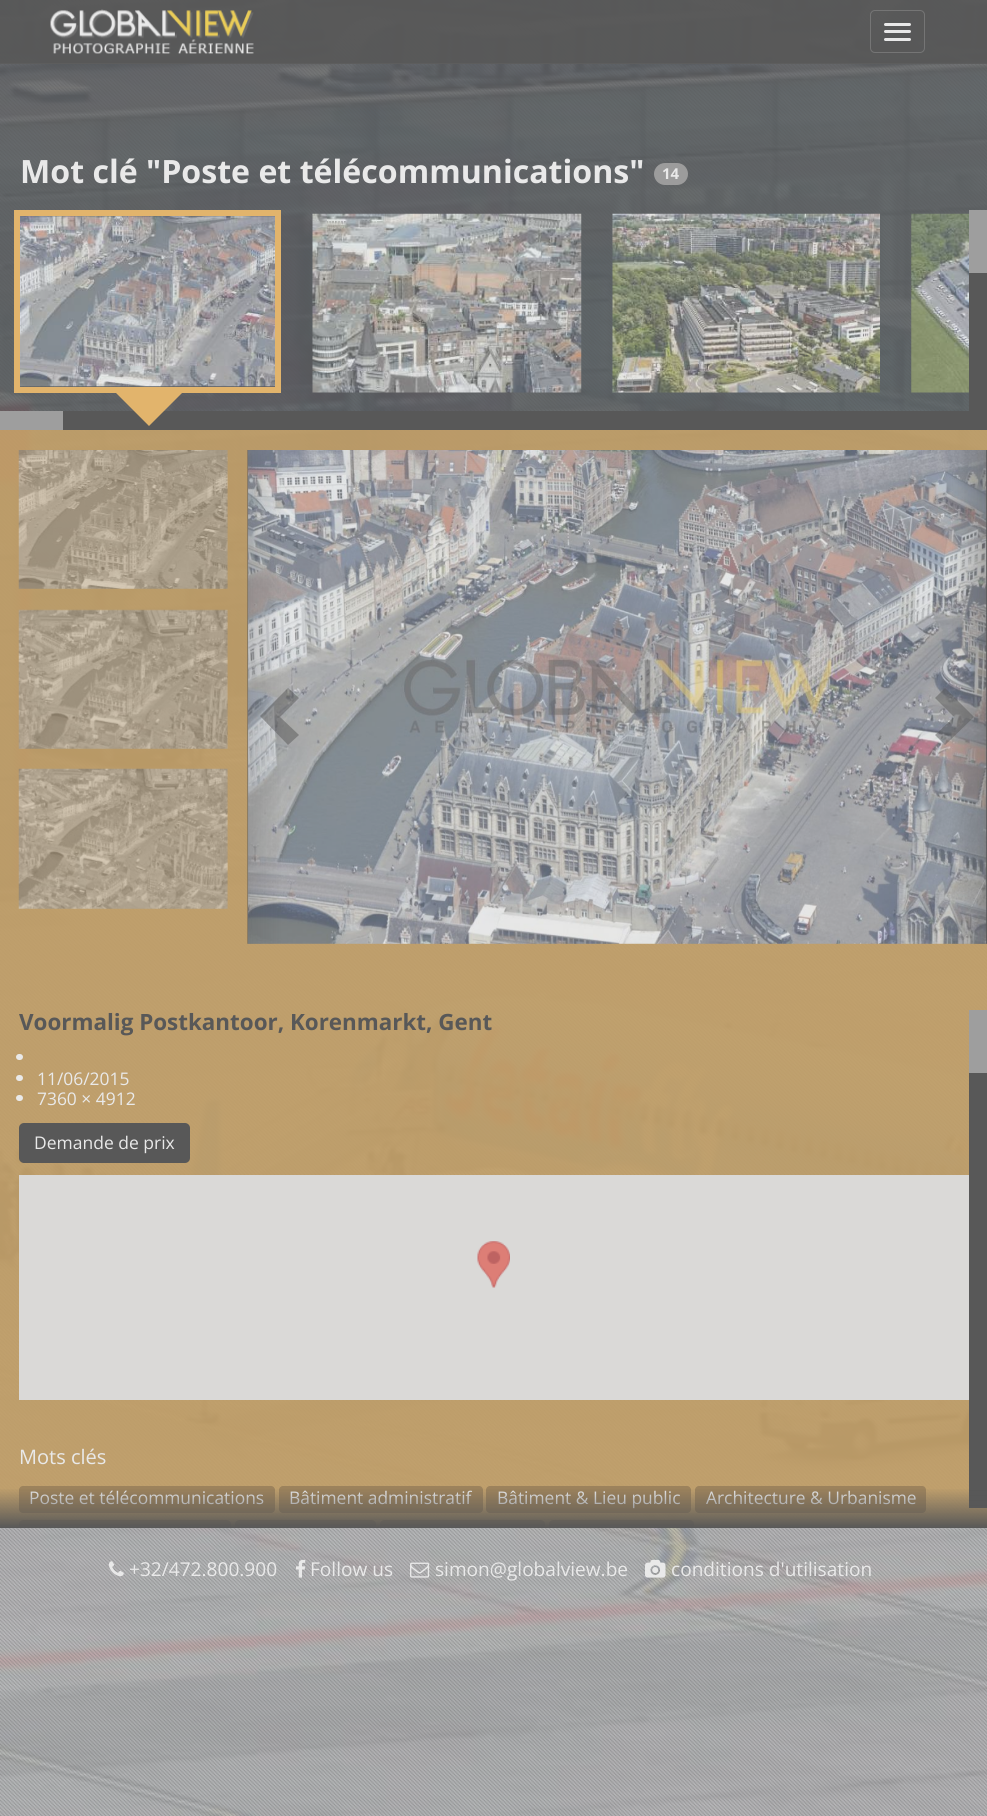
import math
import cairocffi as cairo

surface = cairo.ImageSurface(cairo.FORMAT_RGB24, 987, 1816)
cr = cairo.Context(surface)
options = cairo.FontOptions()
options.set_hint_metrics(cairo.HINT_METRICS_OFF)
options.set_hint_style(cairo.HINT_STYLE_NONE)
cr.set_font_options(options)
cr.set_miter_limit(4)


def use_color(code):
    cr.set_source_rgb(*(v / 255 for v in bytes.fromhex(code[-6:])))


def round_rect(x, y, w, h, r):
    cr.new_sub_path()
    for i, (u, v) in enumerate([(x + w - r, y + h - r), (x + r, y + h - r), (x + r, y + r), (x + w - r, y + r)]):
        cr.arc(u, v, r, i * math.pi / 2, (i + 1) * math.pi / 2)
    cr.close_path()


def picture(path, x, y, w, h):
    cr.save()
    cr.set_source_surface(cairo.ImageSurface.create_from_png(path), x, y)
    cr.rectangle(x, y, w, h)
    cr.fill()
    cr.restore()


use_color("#ffffff")
cr.paint()
picture("img1.png", 0, 0, 987, 1816)
picture("img2.png", 0, 0, 987, 1816)
cr.set_source_rgba(0.345, 0.345, 0.345, 0.7)
cr.rectangle(0, 0, 987, 1528)
cr.fill()
cr.set_source_rgba(0.345, 0.345, 0.345, 0.9)
cr.rectangle(0, 0, 987, 63)
cr.fill()
use_color("#5d5d5d")
cr.rectangle(0, 63, 987, 1)
cr.fill()
picture("img3.png", 50, 9, 204, 45)
round_rect(870.5, 10.5, 54, 42, 4.5)
use_color("#757575")
cr.set_line_width(1)
cr.stroke()
use_color("#e9e9e9")
round_rect(884, 23, 27, 3, 1.5)
cr.fill()
round_rect(884, 30, 27, 3, 1.5)
cr.fill()
round_rect(884, 38, 27, 3, 1.5)
cr.fill()
cr.select_font_face("Open Sans", cairo.FONT_SLANT_NORMAL, cairo.FONT_WEIGHT_BOLD)
cr.set_font_size(32.1)
cr.move_to(20, 183)
cr.show_text("Mot clé \"Poste et télécommunications\"")
use_color("#9c9c9c")
round_rect(654, 163, 34, 22, 11)
cr.fill()
cr.set_font_size(15)
use_color("#e9e9e9")
cr.move_to(662, 179)
cr.show_text("14")
cr.rectangle(17, 213, 261, 177)
use_color("#e2b46c")
cr.set_line_width(6)
cr.stroke()
picture("img4.png", 20, 216, 255, 171)
use_color("#585858")
cr.rectangle(63, 411, 906, 19)
cr.fill()
use_color("#e2b46c")
cr.new_path()
cr.move_to(114, 391)
cr.line_to(184, 391)
cr.line_to(149, 426)
cr.close_path()
cr.fill()
picture("img5.png", 312, 213, 270, 180)
picture("img6.png", 612, 213, 268, 180)
picture("img7.png", 911, 213, 58, 180)
cr.set_source_rgba(0.886, 0.706, 0.424, 0.7)
cr.rectangle(0, 430, 987, 1098)
cr.fill()
picture("img8.png", 18, 450, 210, 139)
picture("img9.png", 18, 609, 210, 140)
picture("img10.png", 18, 768, 210, 141)
picture("img11.png", 247, 450, 740, 494)
gradient = cairo.LinearGradient(248, 697, 284, 697)
gradient.add_color_stop_rgba(0, 0.345, 0.345, 0.345, 0.25)
gradient.add_color_stop_rgba(1, 0.345, 0.345, 0.345, 0)
cr.set_source(gradient)
cr.rectangle(248, 450, 33, 494)
cr.fill()
cr.set_source_rgba(0.345, 0.345, 0.345, 0.5)
cr.new_path()
cr.move_to(299, 698)
cr.line_to(280, 717)
cr.line_to(299, 735)
cr.line_to(288, 745)
cr.line_to(260, 716)
cr.line_to(288, 688)
cr.close_path()
cr.fill()
gradient = cairo.LinearGradient(950, 697, 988, 697)
gradient.add_color_stop_rgba(0, 0.345, 0.345, 0.345, 0)
gradient.add_color_stop_rgba(1, 0.345, 0.345, 0.345, 0.4)
cr.set_source(gradient)
cr.rectangle(952, 450, 35, 494)
cr.fill()
cr.set_source_rgba(0.345, 0.345, 0.345, 0.5)
cr.new_path()
cr.move_to(974, 717)
cr.line_to(945, 745)
cr.line_to(935, 735)
cr.line_to(954, 717)
cr.line_to(935, 698)
cr.line_to(945, 688)
cr.close_path()
cr.fill()
cr.set_font_size(22.4)
use_color("#585858")
cr.move_to(19, 1030)
cr.show_text("Voormalig Postkantoor, Korenmarkt, Gent")
use_color("#e9e9e9")
round_rect(16, 1054, 7, 6, 3)
cr.fill()
round_rect(16, 1075, 7, 6, 3)
cr.fill()
cr.select_font_face("Open Sans")
cr.set_font_size(17.4)
cr.move_to(37, 1085)
cr.show_text("11/06/2015")
round_rect(16, 1095, 7, 6, 3)
cr.fill()
cr.move_to(37, 1105)
cr.show_text("7360 × 4912")
use_color("#585858")
round_rect(19, 1123, 171, 40, 5)
cr.fill()
cr.set_font_size(17.5)
use_color("#e9e9e9")
cr.move_to(34, 1149)
cr.show_text("Demande de prix")
use_color("#dad9d7")
cr.rectangle(19, 1175, 950, 225)
cr.fill()
picture("img12.png", 477, 1241, 33, 47)
cr.set_font_size(20)
use_color("#e9e9e9")
cr.move_to(19, 1464)
cr.show_text("Mots clés")
use_color("#9c825c")
round_rect(19, 1486, 256, 27, 4)
cr.fill()
cr.set_font_size(17.4)
use_color("#e9e9e9")
cr.move_to(29, 1504)
cr.show_text("Poste et télécommunications")
use_color("#9c825c")
round_rect(279, 1486, 204, 27, 4)
cr.fill()
use_color("#e9e9e9")
cr.move_to(289, 1504)
cr.show_text("Bâtiment administratif")
use_color("#9c825c")
round_rect(486, 1486, 205, 27, 4)
cr.fill()
use_color("#e9e9e9")
cr.move_to(497, 1504)
cr.show_text("Bâtiment & Lieu public")
use_color("#9c825c")
round_rect(695, 1486, 231, 27, 4)
cr.fill()
use_color("#e9e9e9")
cr.move_to(706, 1504)
cr.show_text("Architecture & Urbanisme")
use_color("#9c825c")
cr.new_path()
cr.move_to(23, 1520)
cr.line_to(227, 1520)
cr.curve_to(229, 1520, 231, 1522, 231, 1524)
cr.line_to(231, 1528)
cr.line_to(19, 1528)
cr.line_to(19, 1524)
cr.curve_to(19, 1522, 21, 1520, 23, 1520)
cr.close_path()
cr.fill()
cr.new_path()
cr.move_to(239, 1520)
cr.line_to(372, 1520)
cr.curve_to(374, 1520, 376, 1522, 376, 1524)
cr.line_to(376, 1528)
cr.line_to(235, 1528)
cr.line_to(235, 1524)
cr.curve_to(235, 1522, 237, 1520, 239, 1520)
cr.close_path()
cr.fill()
cr.new_path()
cr.move_to(384, 1520)
cr.line_to(541, 1520)
cr.curve_to(543, 1520, 545, 1522, 545, 1524)
cr.line_to(545, 1528)
cr.line_to(380, 1528)
cr.line_to(380, 1524)
cr.curve_to(380, 1522, 382, 1520, 384, 1520)
cr.close_path()
cr.fill()
cr.new_path()
cr.move_to(553, 1520)
cr.line_to(690, 1520)
cr.curve_to(692, 1520, 694, 1522, 694, 1524)
cr.line_to(694, 1528)
cr.line_to(549, 1528)
cr.line_to(549, 1524)
cr.curve_to(549, 1522, 551, 1520, 553, 1520)
cr.close_path()
cr.fill()
use_color("#585858")
cr.rectangle(969, 1073, 18, 435)
cr.fill()
gradient = cairo.LinearGradient(494, 1488, 494, 1528)
gradient.add_color_stop_rgba(0, 0.345, 0.345, 0.345, 0)
gradient.add_color_stop_rgba(1, 0.345, 0.345, 0.345, 1)
cr.set_source(gradient)
cr.rectangle(0, 1489, 987, 39)
cr.fill()
use_color("#585858")
cr.rectangle(969, 273, 18, 157)
cr.fill()
use_color("#9e9e9e")
cr.rectangle(969, 210, 18, 63)
cr.fill()
cr.rectangle(0, 411, 63, 19)
cr.fill()
cr.rectangle(969, 1010, 18, 63)
cr.fill()
picture("img13.png", 108, 1561, 16, 16)
cr.set_font_size(19.1)
use_color("#e9e9e9")
cr.move_to(129, 1576)
cr.show_text("+32/472.800.900")
picture("img14.png", 296, 1559, 10, 19)
cr.move_to(310, 1576)
cr.show_text("Follow us")
picture("img15.png", 410, 1562, 20, 16)
cr.move_to(435, 1576)
cr.show_text("simon@globalview.be")
picture("img16.png", 645, 1559, 21, 19)
cr.move_to(671, 1576)
cr.show_text("conditions d'utilisation")
surface.write_to_png("result.png")
